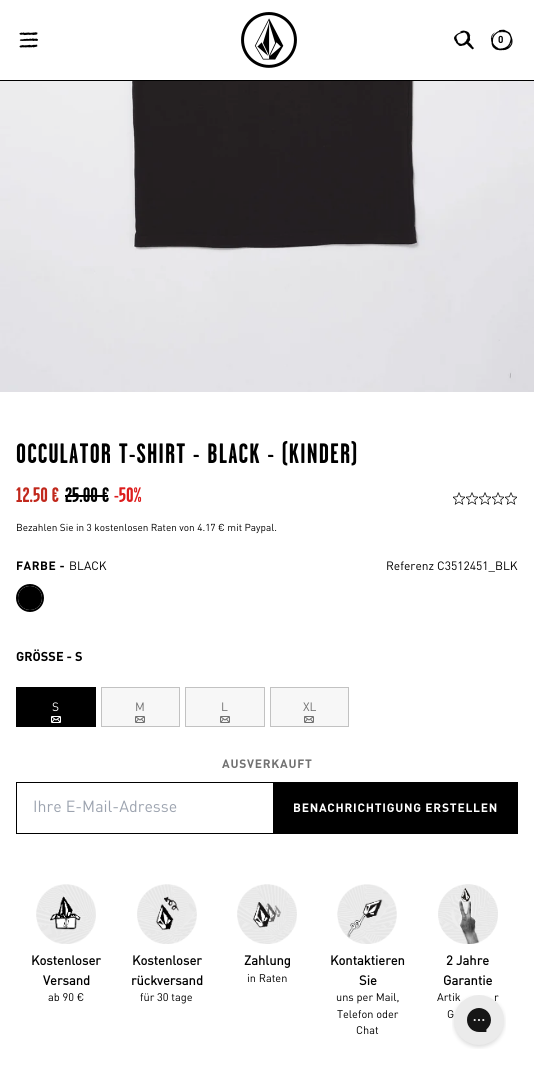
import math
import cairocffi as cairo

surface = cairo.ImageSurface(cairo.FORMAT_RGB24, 534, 1072)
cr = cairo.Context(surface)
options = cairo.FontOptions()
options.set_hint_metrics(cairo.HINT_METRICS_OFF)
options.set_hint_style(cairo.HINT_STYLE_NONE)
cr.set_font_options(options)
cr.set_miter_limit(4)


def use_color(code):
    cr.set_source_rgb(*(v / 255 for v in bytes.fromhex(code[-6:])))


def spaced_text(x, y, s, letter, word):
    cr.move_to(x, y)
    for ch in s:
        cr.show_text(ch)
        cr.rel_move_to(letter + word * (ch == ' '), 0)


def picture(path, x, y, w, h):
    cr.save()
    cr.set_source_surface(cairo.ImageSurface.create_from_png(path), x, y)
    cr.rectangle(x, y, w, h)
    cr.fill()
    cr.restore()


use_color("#ffffff")
cr.paint()
use_color("#000000")
cr.rectangle(0, 80, 534, 1)
cr.fill()
picture("img1.png", 19, 32, 19, 16)
picture("img2.png", 241, 12, 56, 56)
picture("img3.png", 454, 30, 20, 20)
cr.select_font_face("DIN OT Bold")
cr.set_font_size(10)
cr.move_to(498, 43)
cr.show_text("0")
picture("img4.png", 490, 29, 23, 22)
picture("img5.png", 0, 81, 534, 311)
cr.select_font_face("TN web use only", cairo.FONT_SLANT_NORMAL, cairo.FONT_WEIGHT_BOLD)
cr.set_font_size(28)
spaced_text(16, 463, "OCCULATOR T-SHIRT - BLACK - (KINDER)", 1.15, 0)
cr.set_font_size(21)
use_color("#c1281c")
cr.move_to(16, 502)
cr.show_text("12.50 €")
use_color("#000000")
cr.move_to(65, 502)
cr.show_text("25.00 €")
cr.rectangle(65, 495, 43, 2)
cr.fill()
use_color("#dd1d1d")
cr.move_to(114, 502)
cr.show_text("-50%")
picture("img6.png", 453, 492, 12, 13)
picture("img6.png", 466, 492, 12, 13)
picture("img6.png", 479, 492, 12, 13)
picture("img6.png", 492, 492, 12, 13)
picture("img6.png", 505, 492, 12, 13)
cr.select_font_face("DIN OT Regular")
cr.set_font_size(10)
use_color("#000000")
cr.move_to(16, 531)
cr.show_text("Bezahlen Sie in 3 kostenlosen Raten von 4.17 € mit Paypal.")
cr.select_font_face("DIN OT Bold")
cr.set_font_size(12)
spaced_text(16, 570, "FARBE -", 0.5, 0)
cr.select_font_face("DIN OT Regular")
cr.move_to(69, 570)
cr.show_text("BLACK")
cr.new_path()
cr.arc(30, 598, 13, 0, 2 * math.pi)
cr.stroke()
cr.arc(30, 598, 12, 0, 2 * math.pi)
cr.fill()
cr.move_to(386, 570)
cr.show_text("Referenz C3512451_BLK")
cr.select_font_face("DIN OT Bold")
cr.set_font_size(12.75)
cr.move_to(16, 661)
cr.show_text("GRÖSSE - S")
cr.rectangle(16, 687, 80, 40)
cr.fill()
cr.select_font_face("DIN OT Regular")
cr.set_font_size(12)
use_color("#ffffff")
cr.move_to(52, 711)
cr.show_text("S")
picture("img7.png", 51, 716, 10, 7)
use_color("#f7f7f7")
cr.rectangle(101.5, 687.5, 78, 39)
cr.fill_preserve()
use_color("#c2c2c2")
cr.set_line_width(1)
cr.stroke()
use_color("#717171")
cr.move_to(135, 711)
cr.show_text("M")
picture("img8.png", 135, 716, 10, 7)
use_color("#f7f7f7")
cr.rectangle(185.5, 687.5, 79, 39)
cr.fill_preserve()
use_color("#c2c2c2")
cr.stroke()
use_color("#717171")
cr.move_to(221, 711)
cr.show_text("L")
picture("img8.png", 220, 716, 10, 7)
use_color("#f7f7f7")
cr.rectangle(270.5, 687.5, 78, 39)
cr.fill_preserve()
use_color("#c2c2c2")
cr.stroke()
use_color("#717171")
cr.move_to(303, 711)
cr.show_text("XL")
picture("img8.png", 304, 716, 10, 7)
cr.select_font_face("DIN OT Bold")
spaced_text(222, 768, "AUSVERKAUFT", 0.75, 0)
cr.rectangle(16.5, 782.5, 501, 51)
use_color("#000000")
cr.stroke()
cr.select_font_face("DIN OT Regular")
cr.set_font_size(16)
use_color("#9ca3af")
cr.move_to(33, 812)
cr.show_text("Ihre E-Mail-Adresse")
use_color("#000000")
cr.rectangle(273, 783, 244, 50)
cr.fill()
cr.select_font_face("DIN OT Bold")
cr.set_font_size(12)
use_color("#ffffff")
spaced_text(293, 812, "BENACHRICHTIGUNG ERSTELLEN", 0.75, 0)
picture("img9.png", 36, 884, 60, 60)
cr.select_font_face("DIN OT Regular", cairo.FONT_SLANT_NORMAL, cairo.FONT_WEIGHT_BOLD)
cr.set_font_size(13)
use_color("#000000")
cr.move_to(31, 965)
cr.show_text("Kostenloser")
cr.move_to(43, 985)
cr.show_text("Versand")
cr.select_font_face("DIN OT Regular")
cr.set_font_size(11)
cr.move_to(48, 1001)
cr.show_text("ab 90 €")
picture("img10.png", 137, 884, 60, 60)
cr.select_font_face("DIN OT Regular", cairo.FONT_SLANT_NORMAL, cairo.FONT_WEIGHT_BOLD)
cr.set_font_size(13)
cr.move_to(132, 965)
cr.show_text("Kostenloser")
cr.move_to(131, 985)
cr.show_text("rückversand")
cr.select_font_face("DIN OT Regular")
cr.set_font_size(11)
cr.move_to(140, 1001)
cr.show_text("für 30 tage")
picture("img11.png", 237, 884, 60, 60)
cr.select_font_face("DIN OT Regular", cairo.FONT_SLANT_NORMAL, cairo.FONT_WEIGHT_BOLD)
cr.set_font_size(13)
cr.move_to(244, 965)
cr.show_text("Zahlung")
cr.select_font_face("DIN OT Regular")
cr.set_font_size(11)
cr.move_to(247, 982)
cr.show_text("in Raten")
picture("img12.png", 337, 884, 60, 60)
cr.select_font_face("DIN OT Regular", cairo.FONT_SLANT_NORMAL, cairo.FONT_WEIGHT_BOLD)
cr.set_font_size(13)
cr.move_to(330, 965)
cr.show_text("Kontaktieren")
cr.move_to(359, 985)
cr.show_text("Sie")
cr.select_font_face("DIN OT Regular")
cr.set_font_size(11)
cr.move_to(336, 1001)
cr.show_text("uns per Mail,")
cr.move_to(337, 1018)
cr.show_text("Telefon oder")
cr.move_to(356, 1034)
cr.show_text("Chat")
picture("img13.png", 438, 884, 60, 60)
cr.select_font_face("DIN OT Regular", cairo.FONT_SLANT_NORMAL, cairo.FONT_WEIGHT_BOLD)
cr.set_font_size(13)
cr.move_to(446, 965)
cr.show_text("2 Jahre")
cr.move_to(443, 985)
cr.show_text("Garantie")
cr.select_font_face("DIN OT Regular")
cr.set_font_size(11)
cr.move_to(437, 1001)
cr.show_text("Artik")
cr.move_to(494, 1001)
cr.show_text("r")
cr.move_to(447, 1018)
cr.show_text("G")
picture("img14.png", 452, 995, 54, 54)
surface.write_to_png("result.png")
